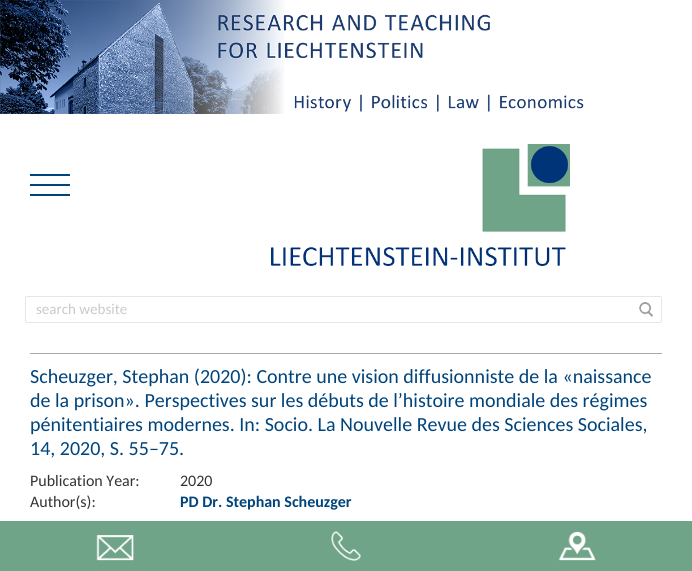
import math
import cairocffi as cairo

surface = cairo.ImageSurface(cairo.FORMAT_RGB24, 692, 571)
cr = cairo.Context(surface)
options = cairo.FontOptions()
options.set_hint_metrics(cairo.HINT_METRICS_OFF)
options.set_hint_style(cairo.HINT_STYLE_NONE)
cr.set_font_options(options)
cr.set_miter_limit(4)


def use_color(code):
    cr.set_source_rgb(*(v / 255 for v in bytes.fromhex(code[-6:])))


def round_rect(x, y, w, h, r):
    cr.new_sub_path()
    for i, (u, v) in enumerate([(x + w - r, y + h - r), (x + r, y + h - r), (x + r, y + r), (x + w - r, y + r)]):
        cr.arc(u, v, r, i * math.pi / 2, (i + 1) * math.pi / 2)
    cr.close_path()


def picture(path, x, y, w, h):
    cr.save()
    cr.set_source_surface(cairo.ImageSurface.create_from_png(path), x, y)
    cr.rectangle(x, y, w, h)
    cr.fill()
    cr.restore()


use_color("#ffffff")
cr.paint()
picture("img1.png", 0, 0, 584, 114)
use_color("#00447c")
cr.rectangle(30, 194, 40, 2)
cr.fill()
cr.rectangle(30, 184, 40, 2)
cr.fill()
cr.rectangle(30, 174, 40, 2)
cr.fill()
picture("img2.png", 271, 144, 299, 122)
round_rect(25.5, 296.5, 636, 26, 1.5)
use_color("#e6e6e6")
cr.set_line_width(1)
cr.stroke()
cr.select_font_face("Carlito")
cr.set_font_size(15)
use_color("#cacaca")
cr.move_to(36, 314)
cr.show_text("search website")
picture("img3.png", 639, 302, 14, 15)
use_color("#a7a9ac")
cr.rectangle(30, 353, 632, 1)
cr.fill()
cr.set_font_size(20)
use_color("#00447c")
cr.move_to(30, 383)
cr.show_text("Scheuzger, Stephan (2020): Contre une vision diffusionniste de la «naissance")
cr.move_to(30, 407)
cr.show_text("de la prison». Perspectives sur les débuts de l’histoire mondiale des régimes")
cr.move_to(30, 431)
cr.show_text("pénitentiaires modernes. In: Socio. La Nouvelle Revue des Sciences Sociales,")
cr.move_to(30, 455)
cr.show_text("14, 2020, S. 55–75.")
cr.set_font_size(16)
use_color("#333333")
cr.move_to(30, 486)
cr.show_text("Publication Year:")
cr.move_to(180, 486)
cr.show_text("2020")
cr.move_to(30, 507)
cr.show_text("Author(s):")
cr.select_font_face("Carlito", cairo.FONT_SLANT_NORMAL, cairo.FONT_WEIGHT_BOLD)
use_color("#00447c")
cr.move_to(180, 507)
cr.show_text("PD Dr. Stephan Scheuzger")
use_color("#70a489")
cr.rectangle(0, 521, 692, 50)
cr.fill()
picture("img4.png", 96, 535, 38, 26)
picture("img5.png", 331, 531, 30, 30)
picture("img6.png", 558, 531, 38, 30)
surface.write_to_png("result.png")
